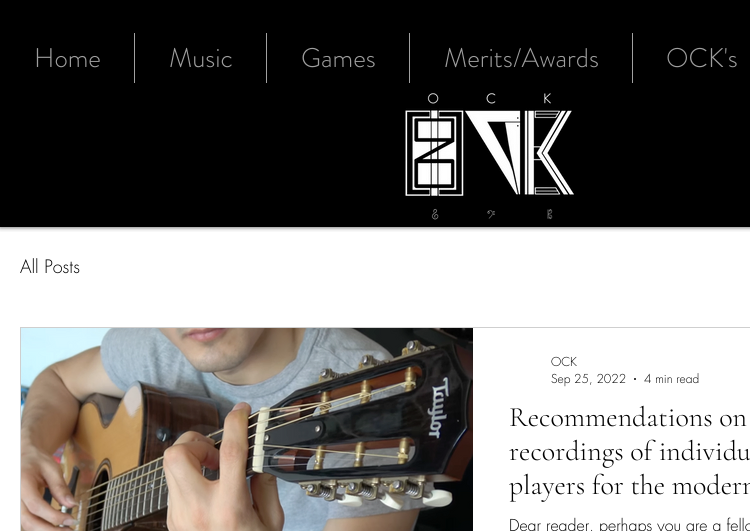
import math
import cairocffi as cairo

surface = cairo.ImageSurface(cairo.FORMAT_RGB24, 750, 531)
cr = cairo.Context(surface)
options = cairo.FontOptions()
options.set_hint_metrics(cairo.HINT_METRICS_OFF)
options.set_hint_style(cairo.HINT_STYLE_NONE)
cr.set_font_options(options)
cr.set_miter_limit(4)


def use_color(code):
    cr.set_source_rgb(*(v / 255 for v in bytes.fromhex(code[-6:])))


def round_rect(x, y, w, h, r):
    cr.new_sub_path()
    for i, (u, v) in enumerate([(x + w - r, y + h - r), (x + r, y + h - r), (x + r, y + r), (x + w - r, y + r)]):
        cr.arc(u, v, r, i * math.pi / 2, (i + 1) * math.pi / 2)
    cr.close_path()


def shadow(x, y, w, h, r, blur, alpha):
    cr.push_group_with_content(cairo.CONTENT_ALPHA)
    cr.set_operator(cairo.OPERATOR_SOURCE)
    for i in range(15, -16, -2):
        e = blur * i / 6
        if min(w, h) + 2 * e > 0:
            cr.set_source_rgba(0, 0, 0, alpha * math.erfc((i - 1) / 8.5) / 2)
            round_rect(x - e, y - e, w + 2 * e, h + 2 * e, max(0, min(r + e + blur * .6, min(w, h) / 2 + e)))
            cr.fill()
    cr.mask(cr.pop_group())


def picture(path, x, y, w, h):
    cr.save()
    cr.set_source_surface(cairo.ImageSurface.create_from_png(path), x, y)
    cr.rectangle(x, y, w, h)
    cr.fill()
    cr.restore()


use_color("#000000")
cr.paint()
use_color("#ffffff")
cr.rectangle(0, 227, 750, 304)
cr.fill()
cr.save()
cr.rectangle(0, 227, 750, 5)
cr.clip()
use_color("#000000")
shadow(0, 0, 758, 227, 0, 2.5, 0.7)
cr.restore()
cr.select_font_face("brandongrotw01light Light")
cr.set_font_size(27)
use_color("#9e9e9e")
cr.move_to(34, 67)
cr.show_text("Home")
use_color("#a1a1a1")
cr.rectangle(134, 33, 1, 50)
cr.fill()
use_color("#9e9e9e")
cr.move_to(169, 67)
cr.show_text("Music")
use_color("#a1a1a1")
cr.rectangle(266, 33, 1, 50)
cr.fill()
use_color("#9e9e9e")
cr.move_to(301, 67)
cr.show_text("Games")
use_color("#a1a1a1")
cr.rectangle(409, 33, 1, 50)
cr.fill()
use_color("#9e9e9e")
cr.move_to(444, 67)
cr.show_text("Merits/Awards")
use_color("#a1a1a1")
cr.rectangle(632, 33, 1, 50)
cr.fill()
use_color("#9e9e9e")
cr.move_to(666, 67)
cr.show_text("OCK's")
picture("img1.png", 405, 93, 169, 127)
cr.select_font_face("futura Light")
cr.set_font_size(18)
use_color("#000000")
cr.move_to(20, 273)
cr.show_text("All Posts")
cr.rectangle(20.5, 327.5, 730, 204)
use_color("#cfcfcf")
cr.set_line_width(1)
cr.stroke()
picture("img2.png", 21, 328, 452, 203)
cr.set_font_size(12)
use_color("#000000")
cr.move_to(551, 366)
cr.show_text("OCK")
cr.move_to(551, 383)
cr.show_text("Sep 25, 2022")
cr.new_path()
cr.arc(635, 379, 1, 0, 2 * math.pi)
cr.fill()
cr.move_to(644, 383)
cr.show_text("4 min read")
cr.select_font_face("Cormorant Garamond Light")
cr.set_font_size(28)
cr.move_to(509, 426)
cr.show_text("Recommendations on")
cr.move_to(509, 460)
cr.show_text("recordings of individu")
cr.move_to(509, 494)
cr.show_text("players for the modern")
cr.select_font_face("futura Light")
cr.set_font_size(16)
cr.move_to(509, 531)
cr.show_text("Dear reader, perhaps you are a fello")
surface.write_to_png("result.png")
